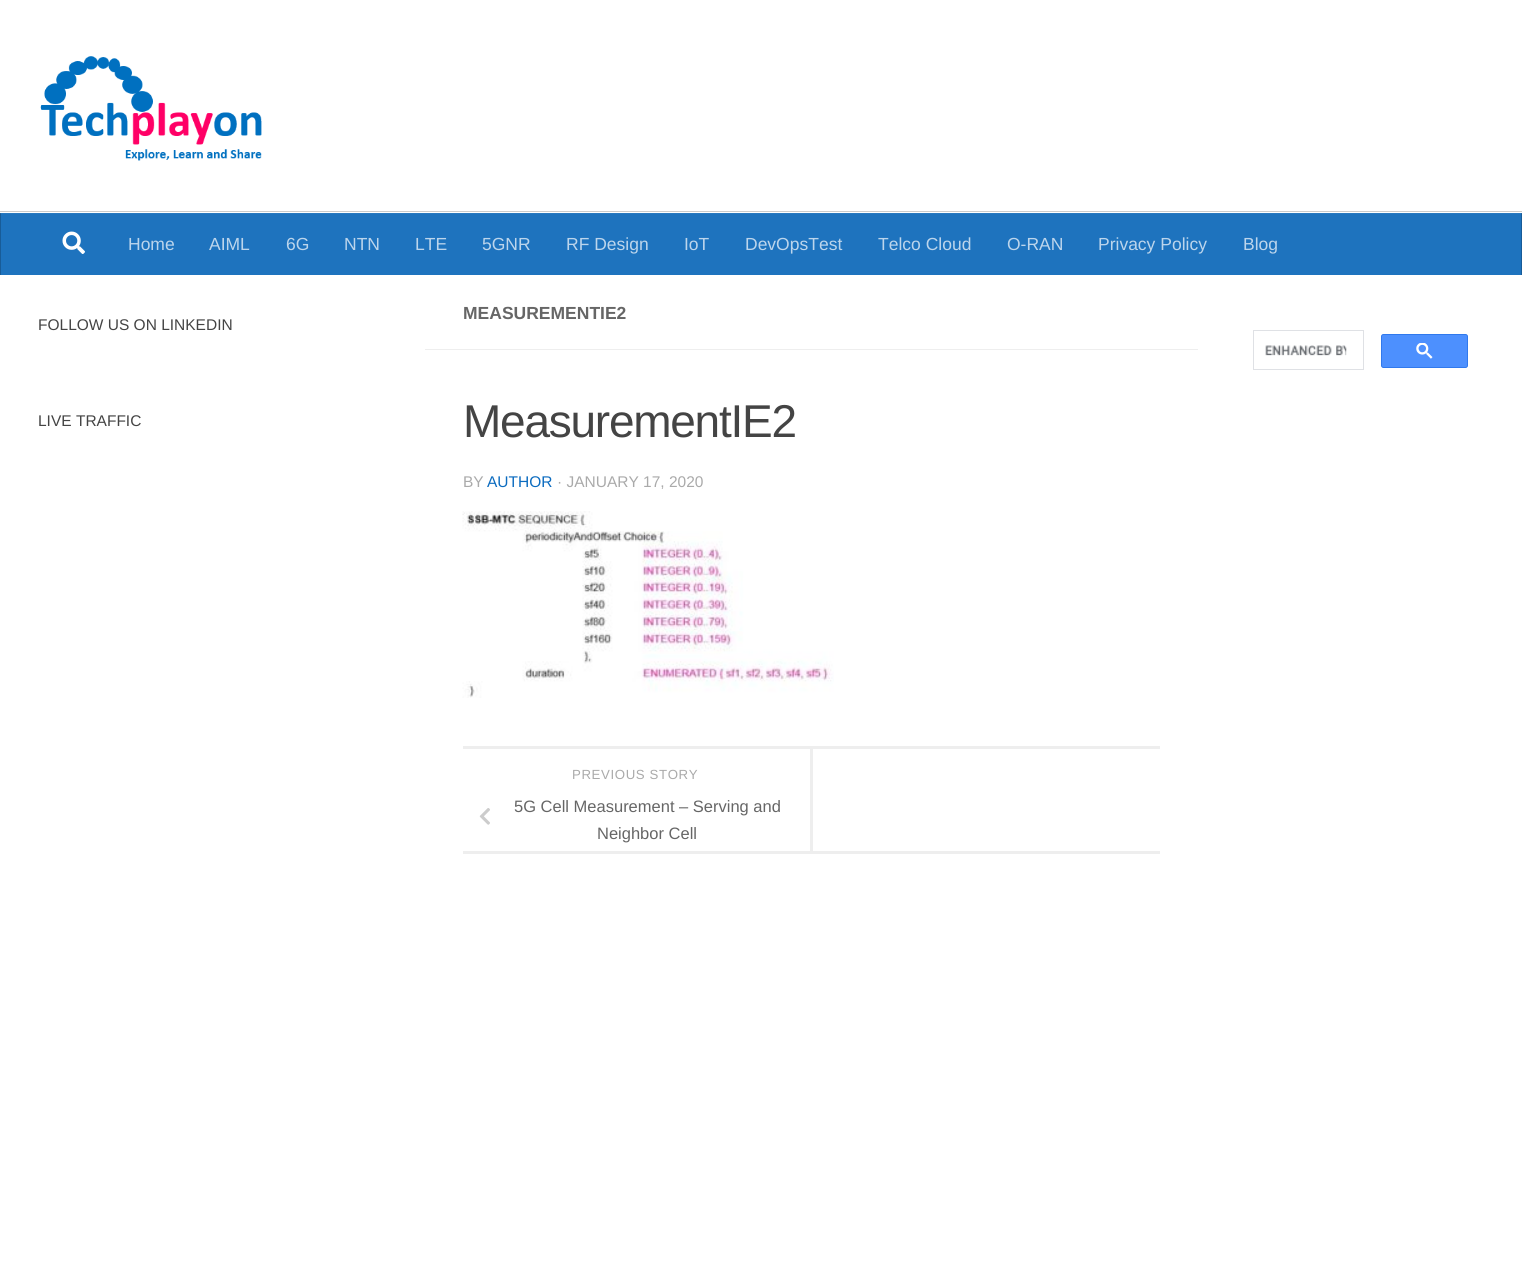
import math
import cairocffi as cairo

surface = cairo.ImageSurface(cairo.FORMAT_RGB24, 1522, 1264)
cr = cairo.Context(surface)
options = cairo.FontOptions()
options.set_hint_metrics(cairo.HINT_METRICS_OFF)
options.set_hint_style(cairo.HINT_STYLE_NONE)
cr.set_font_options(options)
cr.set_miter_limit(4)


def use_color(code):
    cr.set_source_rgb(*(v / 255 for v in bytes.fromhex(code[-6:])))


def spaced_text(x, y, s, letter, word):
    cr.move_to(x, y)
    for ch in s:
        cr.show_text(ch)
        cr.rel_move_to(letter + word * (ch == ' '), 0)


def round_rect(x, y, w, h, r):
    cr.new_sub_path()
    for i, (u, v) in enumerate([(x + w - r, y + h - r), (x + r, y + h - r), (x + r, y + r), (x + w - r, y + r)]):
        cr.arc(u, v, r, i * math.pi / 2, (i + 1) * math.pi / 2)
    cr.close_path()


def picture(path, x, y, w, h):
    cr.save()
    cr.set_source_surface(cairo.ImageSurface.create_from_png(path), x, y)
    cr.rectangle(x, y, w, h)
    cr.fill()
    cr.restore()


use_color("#ffffff")
cr.paint()
picture("img1.png", 40, 56, 222, 105)
use_color("#cccccc")
cr.new_path()
cr.move_to(0, 211)
cr.line_to(0, 212)
cr.line_to(1522, 212)
cr.line_to(1522, 274)
cr.line_to(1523, 274)
cr.line_to(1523, 211)
cr.close_path()
cr.fill()
use_color("#1e73be")
cr.rectangle(1, 214, 1520, 61)
cr.fill()
use_color("#297ac1")
cr.rectangle(0, 213, 1522, 1)
cr.fill()
use_color("#185c98")
cr.rectangle(1521, 213, 1, 62)
cr.fill()
use_color("#24649d")
cr.rectangle(1521, 213, 1, 1)
cr.fill()
use_color("#185c98")
cr.rectangle(0, 213, 1, 62)
cr.fill()
use_color("#24649d")
cr.rectangle(0, 213, 1, 1)
cr.fill()
picture("img2.png", 62, 231, 23, 23)
cr.select_font_face("Liberation Sans")
cr.set_font_size(17.5)
use_color("#bcd5ec")
cr.move_to(128, 250)
cr.show_text("Home")
cr.move_to(209, 250)
cr.show_text("AIML")
cr.move_to(286, 250)
cr.show_text("6G")
cr.move_to(344, 250)
cr.show_text("NTN")
cr.move_to(415, 250)
cr.show_text("LTE")
cr.move_to(482, 250)
cr.show_text("5GNR")
cr.move_to(566, 250)
cr.show_text("RF Design")
cr.move_to(684, 250)
cr.show_text("IoT")
cr.move_to(745, 250)
cr.show_text("DevOpsTest")
cr.move_to(878, 250)
cr.show_text("Telco Cloud")
cr.move_to(1007, 250)
cr.show_text("O-RAN")
cr.move_to(1098, 250)
cr.show_text("Privacy Policy")
cr.move_to(1243, 250)
cr.show_text("Blog")
cr.set_font_size(15.5)
use_color("#444444")
cr.move_to(38, 330)
cr.show_text("FOLLOW US ON LINKEDIN")
cr.move_to(38, 426)
cr.show_text("LIVE TRAFFIC")
use_color("#eeeeee")
cr.rectangle(425, 349, 773, 1)
cr.fill()
cr.select_font_face("Liberation Sans", cairo.FONT_SLANT_NORMAL, cairo.FONT_WEIGHT_BOLD)
cr.set_font_size(17.5)
use_color("#666666")
cr.move_to(463, 319)
cr.show_text("MEASUREMENTIE2")
cr.select_font_face("Liberation Sans")
cr.set_font_size(46)
use_color("#444444")
spaced_text(463, 437, "MeasurementIE2", -1.25, 0)
cr.set_font_size(15.5)
use_color("#aaaaaa")
cr.move_to(463, 487)
cr.show_text("BY")
use_color("#0b6bbf")
cr.move_to(487, 487)
cr.show_text("AUTHOR")
use_color("#aaaaaa")
cr.move_to(557, 487)
cr.show_text("· JANUARY 17, 2020")
picture("img3.png", 462, 511, 372, 187)
use_color("#eeeeee")
cr.rectangle(463, 746, 697, 3)
cr.fill()
cr.rectangle(463, 851, 697, 3)
cr.fill()
cr.rectangle(810, 749, 3, 102)
cr.fill()
cr.set_font_size(13.25)
use_color("#aaaaaa")
spaced_text(572, 779, "PREVIOUS STORY", 0.6, 0)
picture("img4.png", 479, 808, 11, 17)
cr.set_font_size(16.5)
use_color("#666666")
cr.move_to(514, 812)
cr.show_text("5G Cell Measurement – Serving and")
cr.move_to(597, 839)
cr.show_text("Neighbor Cell")
cr.rectangle(1253.5, 330.5, 110, 39)
use_color("#dfe1e5")
cr.set_line_width(1)
cr.stroke()
picture("img5.png", 1265, 345, 82, 11)
use_color("#4d90fe")
round_rect(1381.5, 334.5, 86, 33, 2)
cr.fill_preserve()
use_color("#3079ed")
cr.stroke()
picture("img6.png", 1416, 343, 17, 16)
surface.write_to_png("result.png")
